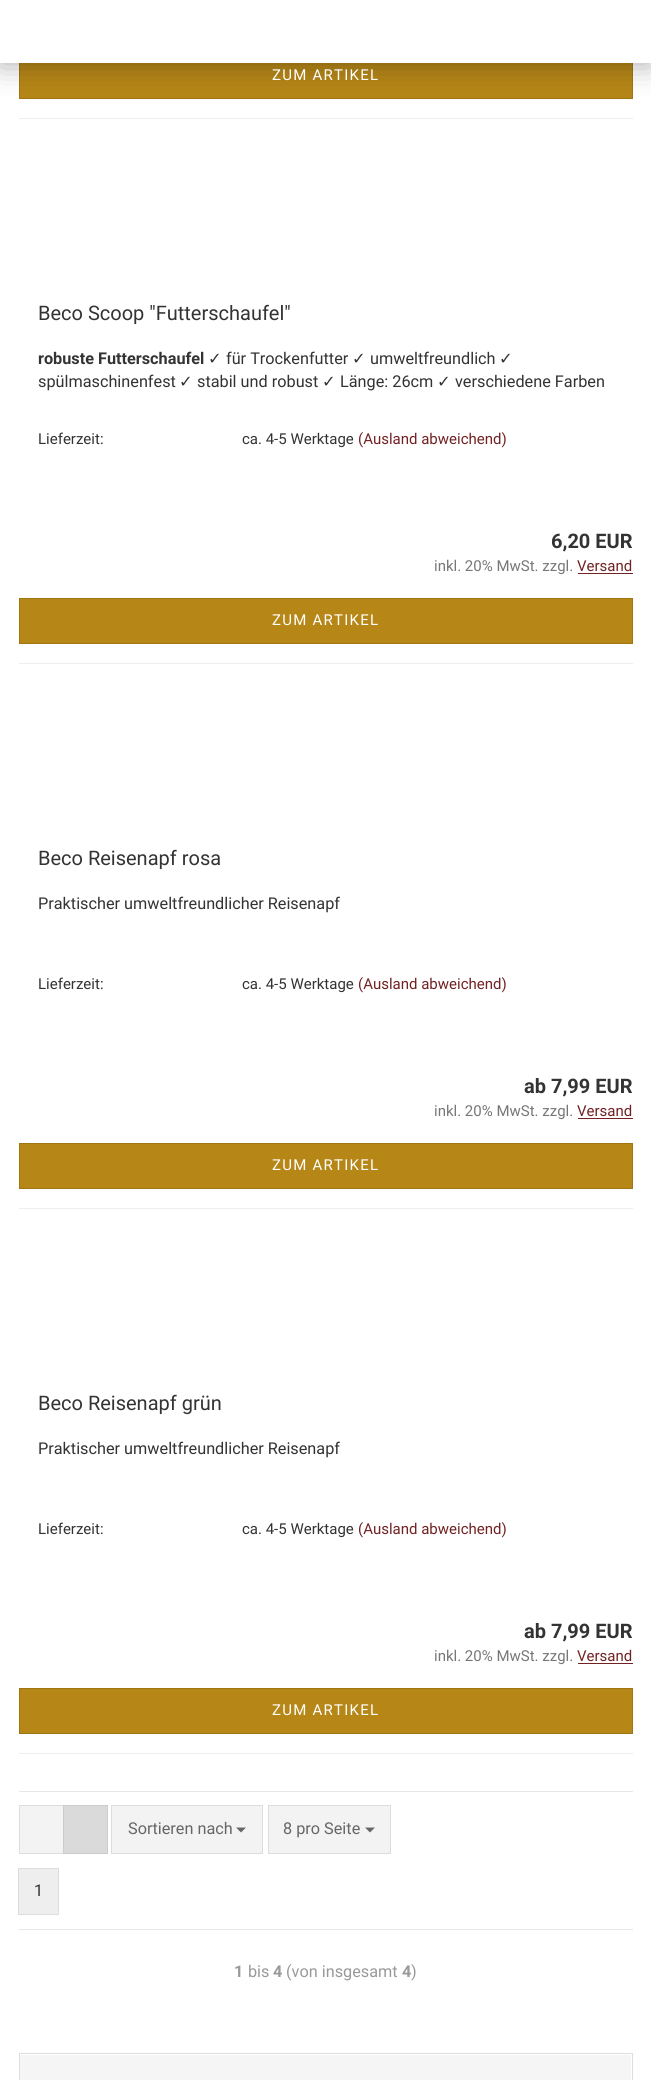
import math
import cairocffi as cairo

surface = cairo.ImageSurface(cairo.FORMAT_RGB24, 651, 2080)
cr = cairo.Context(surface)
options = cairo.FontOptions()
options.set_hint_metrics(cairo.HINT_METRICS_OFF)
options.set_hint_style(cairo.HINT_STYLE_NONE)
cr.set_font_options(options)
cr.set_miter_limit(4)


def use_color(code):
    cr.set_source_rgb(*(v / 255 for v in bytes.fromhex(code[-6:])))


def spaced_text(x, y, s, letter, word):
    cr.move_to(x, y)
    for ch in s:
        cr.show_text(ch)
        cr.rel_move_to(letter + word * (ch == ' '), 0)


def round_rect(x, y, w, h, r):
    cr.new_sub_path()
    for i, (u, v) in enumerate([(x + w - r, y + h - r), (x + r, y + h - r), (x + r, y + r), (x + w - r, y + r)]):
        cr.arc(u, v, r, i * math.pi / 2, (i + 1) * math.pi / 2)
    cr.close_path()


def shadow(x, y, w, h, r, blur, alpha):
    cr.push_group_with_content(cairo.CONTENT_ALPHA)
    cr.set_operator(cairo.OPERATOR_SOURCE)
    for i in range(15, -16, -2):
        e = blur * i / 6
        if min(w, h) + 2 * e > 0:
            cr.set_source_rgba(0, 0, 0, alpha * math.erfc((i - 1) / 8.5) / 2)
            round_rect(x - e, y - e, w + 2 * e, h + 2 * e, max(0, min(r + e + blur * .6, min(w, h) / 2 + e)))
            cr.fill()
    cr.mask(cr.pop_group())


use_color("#ffffff")
cr.paint()
use_color("#b68617")
cr.rectangle(20, 63, 612, 35)
cr.fill()
cr.rectangle(19.5, 53.5, 613, 45)
use_color("#9f7514")
cr.set_line_width(1)
cr.stroke()
use_color("#000000")
shadow(0, 0, 651, 63, 0, 15.5, 0.35)
use_color("#ffffff")
cr.rectangle(0, 0, 651, 63)
cr.fill()
use_color("#eeeeee")
cr.rectangle(19, 118, 614, 1)
cr.fill()
cr.select_font_face("Roboto")
cr.set_font_size(15)
use_color("#ffffff")
spaced_text(272, 80, "ZUM ARTIKEL", 1.25, 0)
use_color("#eeeeee")
cr.rectangle(19, 663, 614, 1)
cr.fill()
cr.set_font_size(20)
use_color("#333333")
cr.move_to(38, 320)
cr.show_text("Beco Scoop \"Futterschaufel\"")
cr.select_font_face("Roboto", cairo.FONT_SLANT_NORMAL, cairo.FONT_WEIGHT_BOLD)
cr.set_font_size(16.25)
cr.move_to(38, 364)
cr.show_text("robuste Futterschaufel")
cr.select_font_face("DejaVu Sans")
cr.move_to(208, 364)
cr.show_text("✓")
cr.select_font_face("Roboto")
cr.move_to(226, 364)
cr.show_text("für Trockenfutter")
cr.select_font_face("DejaVu Sans")
cr.move_to(352, 364)
cr.show_text("✓")
cr.select_font_face("Roboto")
cr.move_to(370, 364)
cr.show_text("umweltfreundlich")
cr.select_font_face("DejaVu Sans")
cr.move_to(499, 364)
cr.show_text("✓")
cr.select_font_face("Roboto")
cr.move_to(38, 387)
cr.show_text("spülmaschinenfest")
cr.select_font_face("DejaVu Sans")
cr.move_to(179, 387)
cr.show_text("✓")
cr.select_font_face("Roboto")
cr.move_to(197, 387)
cr.show_text("stabil und robust")
cr.select_font_face("DejaVu Sans")
cr.move_to(322, 387)
cr.show_text("✓")
cr.select_font_face("Roboto")
cr.move_to(340, 387)
cr.show_text("Länge: 26cm")
cr.select_font_face("DejaVu Sans")
cr.move_to(437, 387)
cr.show_text("✓")
cr.select_font_face("Roboto")
cr.move_to(455, 387)
cr.show_text("verschiedene Farben")
cr.set_font_size(15)
cr.move_to(38, 444)
cr.show_text("Lieferzeit:")
cr.move_to(242, 444)
cr.show_text("ca. 4-5 Werktage")
use_color("#722223")
cr.move_to(358, 444)
cr.show_text("(Ausland abweichend)")
cr.select_font_face("Roboto", cairo.FONT_SLANT_NORMAL, cairo.FONT_WEIGHT_BOLD)
cr.set_font_size(20)
use_color("#333333")
cr.move_to(551, 548)
cr.show_text("6,20 EUR")
cr.select_font_face("Roboto")
cr.set_font_size(15)
use_color("#777777")
cr.move_to(434, 571)
cr.show_text("inkl. 20% MwSt. zzgl.")
use_color("#722223")
cr.move_to(577, 571)
cr.show_text("Versand")
cr.rectangle(578, 573, 55, 1)
cr.fill()
use_color("#b68617")
cr.rectangle(19.5, 598.5, 613, 45)
cr.fill_preserve()
use_color("#9f7514")
cr.stroke()
use_color("#ffffff")
spaced_text(272, 625, "ZUM ARTIKEL", 1.25, 0)
use_color("#eeeeee")
cr.rectangle(19, 1208, 614, 1)
cr.fill()
cr.set_font_size(20)
use_color("#333333")
cr.move_to(38, 865)
cr.show_text("Beco Reisenapf rosa")
cr.set_font_size(16.25)
cr.move_to(38, 909)
cr.show_text("Praktischer umweltfreundlicher Reisenapf")
cr.set_font_size(15)
cr.move_to(38, 989)
cr.show_text("Lieferzeit:")
cr.move_to(242, 989)
cr.show_text("ca. 4-5 Werktage")
use_color("#722223")
cr.move_to(358, 989)
cr.show_text("(Ausland abweichend)")
cr.select_font_face("Roboto", cairo.FONT_SLANT_NORMAL, cairo.FONT_WEIGHT_BOLD)
cr.set_font_size(20)
use_color("#333333")
cr.move_to(524, 1093)
cr.show_text("ab 7,99 EUR")
cr.select_font_face("Roboto")
cr.set_font_size(15)
use_color("#777777")
cr.move_to(434, 1116)
cr.show_text("inkl. 20% MwSt. zzgl.")
use_color("#722223")
cr.move_to(577, 1116)
cr.show_text("Versand")
cr.rectangle(578, 1118, 55, 1)
cr.fill()
use_color("#b68617")
cr.rectangle(19.5, 1143.5, 613, 45)
cr.fill_preserve()
use_color("#9f7514")
cr.stroke()
use_color("#ffffff")
spaced_text(272, 1170, "ZUM ARTIKEL", 1.25, 0)
use_color("#eeeeee")
cr.rectangle(19, 1753, 614, 1)
cr.fill()
cr.set_font_size(20)
use_color("#333333")
cr.move_to(38, 1410)
cr.show_text("Beco Reisenapf grün")
cr.set_font_size(16.25)
cr.move_to(38, 1454)
cr.show_text("Praktischer umweltfreundlicher Reisenapf")
cr.set_font_size(15)
cr.move_to(38, 1534)
cr.show_text("Lieferzeit:")
cr.move_to(242, 1534)
cr.show_text("ca. 4-5 Werktage")
use_color("#722223")
cr.move_to(358, 1534)
cr.show_text("(Ausland abweichend)")
cr.select_font_face("Roboto", cairo.FONT_SLANT_NORMAL, cairo.FONT_WEIGHT_BOLD)
cr.set_font_size(20)
use_color("#333333")
cr.move_to(524, 1638)
cr.show_text("ab 7,99 EUR")
cr.select_font_face("Roboto")
cr.set_font_size(15)
use_color("#777777")
cr.move_to(434, 1661)
cr.show_text("inkl. 20% MwSt. zzgl.")
use_color("#722223")
cr.move_to(577, 1661)
cr.show_text("Versand")
cr.rectangle(578, 1663, 55, 1)
cr.fill()
use_color("#b68617")
cr.rectangle(19.5, 1688.5, 613, 45)
cr.fill_preserve()
use_color("#9f7514")
cr.stroke()
use_color("#ffffff")
spaced_text(272, 1715, "ZUM ARTIKEL", 1.25, 0)
use_color("#e7e7e7")
cr.rectangle(19, 1791, 614, 1)
cr.fill()
cr.rectangle(19, 1929, 614, 1)
cr.fill()
use_color("#f3f3f3")
cr.rectangle(19.5, 1805.5, 44, 48)
cr.fill_preserve()
use_color("#dddddd")
cr.stroke()
use_color("#dadada")
cr.rectangle(63.5, 1805.5, 44, 48)
cr.fill_preserve()
use_color("#cccccc")
cr.stroke()
use_color("#f3f3f3")
cr.rectangle(111.5, 1805.5, 151, 48)
cr.fill_preserve()
use_color("#dddddd")
cr.stroke()
cr.set_font_size(16.25)
use_color("#666666")
cr.move_to(128, 1834)
cr.show_text("Sortieren nach")
cr.new_path()
cr.move_to(236, 1827.5)
cr.line_to(246, 1827.5)
cr.line_to(241, 1832.5)
cr.close_path()
cr.fill()
use_color("#f3f3f3")
cr.rectangle(268.5, 1805.5, 122, 48)
cr.fill_preserve()
use_color("#dddddd")
cr.stroke()
use_color("#666666")
cr.move_to(283, 1834)
cr.show_text("8 pro Seite")
cr.new_path()
cr.move_to(365, 1827.5)
cr.line_to(375, 1827.5)
cr.line_to(370, 1832.5)
cr.close_path()
cr.fill()
use_color("#eeeeee")
cr.rectangle(18.5, 1868.5, 40, 46)
cr.fill_preserve()
use_color("#dddddd")
cr.stroke()
use_color("#333333")
cr.move_to(34, 1896)
cr.show_text("1")
cr.select_font_face("Roboto", cairo.FONT_SLANT_NORMAL, cairo.FONT_WEIGHT_BOLD)
use_color("#999999")
cr.move_to(234, 1977)
cr.show_text("1")
cr.select_font_face("Roboto")
cr.move_to(248, 1977)
cr.show_text("bis")
cr.select_font_face("Roboto", cairo.FONT_SLANT_NORMAL, cairo.FONT_WEIGHT_BOLD)
cr.move_to(273, 1977)
cr.show_text("4")
cr.select_font_face("Roboto")
cr.move_to(286, 1977)
cr.show_text("(von insgesamt")
cr.select_font_face("Roboto", cairo.FONT_SLANT_NORMAL, cairo.FONT_WEIGHT_BOLD)
cr.move_to(402, 1977)
cr.show_text("4")
cr.select_font_face("Roboto")
cr.move_to(411, 1977)
cr.show_text(")")
cr.rectangle(19.5, 2053.5, 613, 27)
use_color("#dddddd")
cr.stroke()
use_color("#f5f5f5")
cr.new_path()
cr.move_to(21, 2054)
cr.line_to(630, 2054)
cr.curve_to(630.5, 2054, 631, 2054.5, 631, 2055)
cr.line_to(631, 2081)
cr.line_to(20, 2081)
cr.line_to(20, 2055)
cr.curve_to(20, 2054.5, 20.5, 2054, 21, 2054)
cr.close_path()
cr.fill()
use_color("#ffffff")
cr.new_path()
cr.move_to(21, 2055)
cr.line_to(630, 2055)
cr.line_to(631, 2056)
cr.curve_to(631, 2055, 631, 2054, 630, 2054)
cr.line_to(21, 2054)
cr.curve_to(20, 2054, 20, 2055, 20, 2056)
cr.close_path()
cr.fill()
surface.write_to_png("result.png")
